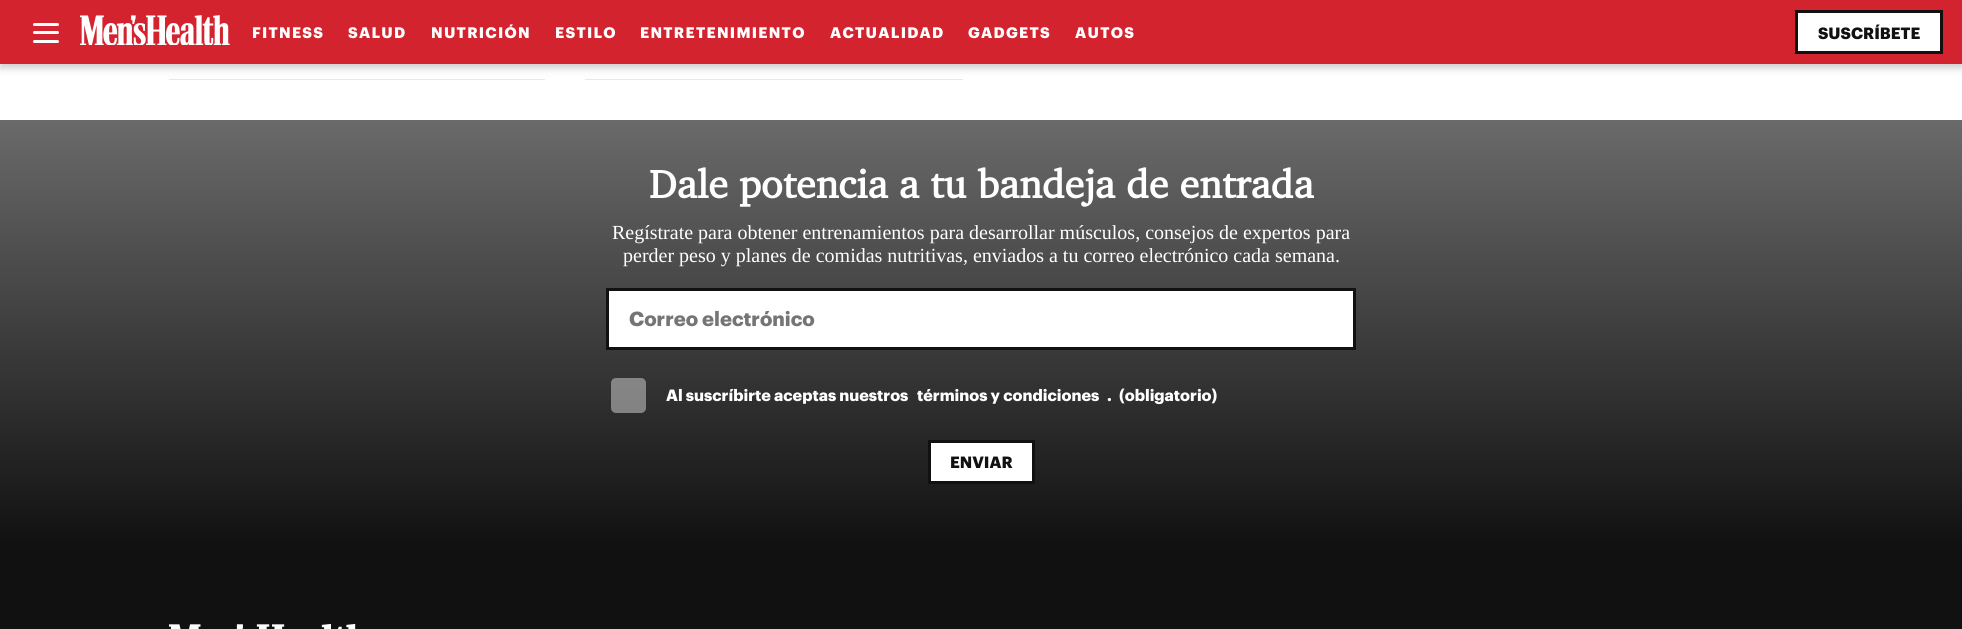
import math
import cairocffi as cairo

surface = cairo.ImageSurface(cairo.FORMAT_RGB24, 1962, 629)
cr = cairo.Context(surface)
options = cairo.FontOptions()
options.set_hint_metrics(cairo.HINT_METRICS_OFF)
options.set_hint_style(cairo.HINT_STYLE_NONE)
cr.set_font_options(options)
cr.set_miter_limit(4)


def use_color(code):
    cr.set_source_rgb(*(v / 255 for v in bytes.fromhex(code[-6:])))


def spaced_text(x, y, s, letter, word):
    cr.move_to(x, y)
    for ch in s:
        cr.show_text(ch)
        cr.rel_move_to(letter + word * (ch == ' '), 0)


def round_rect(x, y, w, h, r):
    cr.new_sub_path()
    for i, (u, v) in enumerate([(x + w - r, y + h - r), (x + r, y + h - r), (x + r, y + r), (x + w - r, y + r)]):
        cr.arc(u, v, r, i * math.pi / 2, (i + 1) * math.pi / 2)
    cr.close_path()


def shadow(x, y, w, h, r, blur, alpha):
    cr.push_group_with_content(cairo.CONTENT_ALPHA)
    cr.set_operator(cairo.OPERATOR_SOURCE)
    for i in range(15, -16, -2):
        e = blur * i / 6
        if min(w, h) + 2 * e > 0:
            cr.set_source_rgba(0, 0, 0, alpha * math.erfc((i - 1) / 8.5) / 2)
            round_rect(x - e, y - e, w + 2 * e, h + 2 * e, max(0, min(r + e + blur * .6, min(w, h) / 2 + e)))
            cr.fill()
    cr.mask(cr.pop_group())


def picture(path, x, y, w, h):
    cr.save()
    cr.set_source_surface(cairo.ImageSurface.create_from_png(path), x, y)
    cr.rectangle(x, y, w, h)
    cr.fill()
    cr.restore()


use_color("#ffffff")
cr.paint()
use_color("#e8e8e8")
cr.rectangle(169, 79, 376, 1)
cr.fill()
cr.rectangle(585, 79, 378, 1)
cr.fill()
use_color("#000000")
shadow(0, 4, 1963, 64, 0, 4, 0.2)
use_color("#d2232e")
cr.rectangle(0, 0, 1962, 64)
cr.fill()
use_color("#ffffff")
round_rect(33, 31, 26, 3, 1.5)
cr.fill()
round_rect(33, 23, 26, 3, 1.5)
cr.fill()
round_rect(33, 40, 26, 3, 1.5)
cr.fill()
picture("img1.png", 80, 15, 150, 30)
cr.select_font_face("Graphik", cairo.FONT_SLANT_NORMAL, cairo.FONT_WEIGHT_BOLD)
cr.set_font_size(15)
spaced_text(252, 38, "FITNESS", 1.25, 0)
spaced_text(348, 38, "SALUD", 1.25, 0)
spaced_text(431, 38, "NUTRICIÓN", 1.25, 0)
spaced_text(555, 38, "ESTILO", 1.25, 0)
spaced_text(640, 38, "ENTRETENIMIENTO", 1.25, 0)
spaced_text(830, 38, "ACTUALIDAD", 1.25, 0)
spaced_text(968, 38, "GADGETS", 1.25, 0)
spaced_text(1075, 38, "AUTOS", 1.25, 0)
cr.rectangle(1796.5, 11.5, 145, 41)
cr.fill_preserve()
use_color("#111111")
cr.set_line_width(3)
cr.stroke()
cr.set_font_size(16)
cr.move_to(1818, 39)
cr.show_text("SUSCRÍBETE")
gradient = cairo.LinearGradient(981, 120, 981, 544)
gradient.add_color_stop_rgba(0, 0.416, 0.416, 0.416, 1)
gradient.add_color_stop_rgba(1, 0.067, 0.067, 0.067, 1)
cr.set_source(gradient)
cr.rectangle(0, 120, 1962, 424)
cr.fill()
cr.select_font_face("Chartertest", cairo.FONT_SLANT_NORMAL, cairo.FONT_WEIGHT_BOLD)
cr.set_font_size(40)
use_color("#ffffff")
cr.move_to(649, 198)
cr.show_text("Dale potencia a tu bandeja de entrada")
cr.select_font_face("Liberation Serif")
cr.set_font_size(20)
cr.move_to(612, 239)
cr.show_text("Regístrate para obtener entrenamientos para desarrollar músculos, consejos de expertos para")
cr.move_to(623, 262)
cr.show_text("perder peso y planes de comidas nutritivas, enviados a tu correo electrónico cada semana.")
cr.rectangle(607.5, 289.5, 747, 59)
cr.fill_preserve()
use_color("#111111")
cr.stroke()
cr.select_font_face("Graphik", cairo.FONT_SLANT_NORMAL, cairo.FONT_WEIGHT_BOLD)
use_color("#757575")
cr.move_to(629, 326)
cr.show_text("Correo electrónico")
cr.set_source_rgba(0.851, 0.851, 0.851, 0.5)
round_rect(611, 378, 35, 35, 5)
cr.fill()
cr.set_font_size(16)
use_color("#ffffff")
cr.move_to(666, 401)
cr.show_text("Al suscríbirte aceptas nuestros")
cr.move_to(917, 401)
cr.show_text("términos y condiciones")
cr.move_to(1107, 401)
cr.show_text(".")
cr.move_to(1119, 401)
cr.show_text("(obligatorio)")
cr.rectangle(929.5, 441.5, 104, 41)
cr.fill_preserve()
use_color("#111111")
cr.stroke()
cr.move_to(950, 468)
cr.show_text("ENVIAR")
cr.rectangle(0, 544, 1962, 85)
cr.fill()
picture("img2.png", 169, 624, 187, 5)
surface.write_to_png("result.png")
